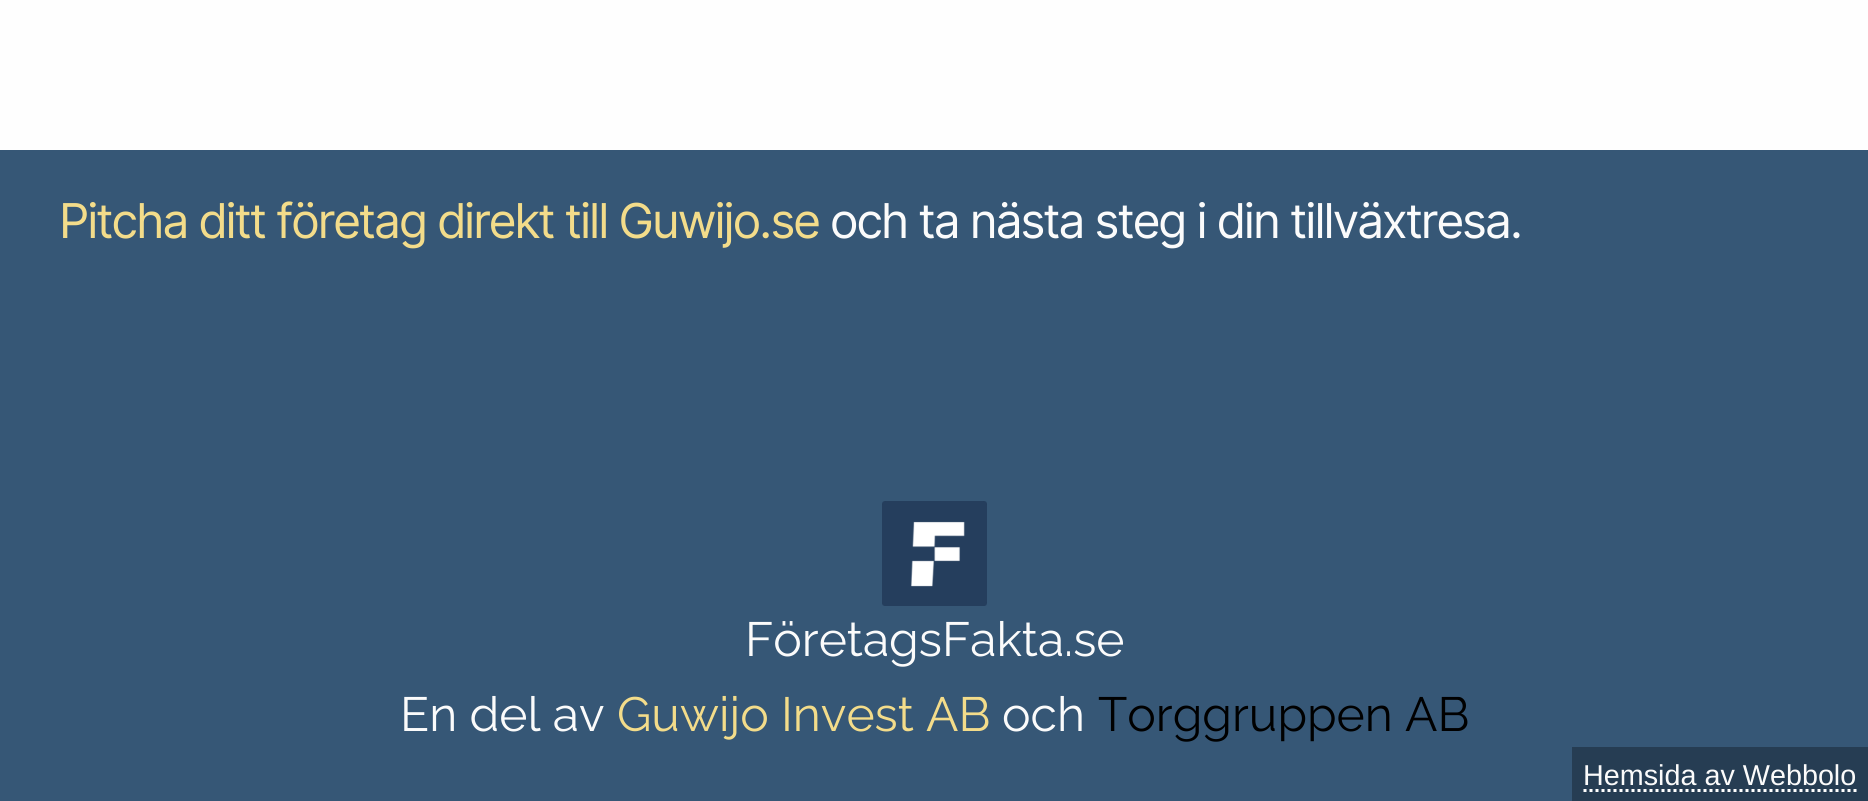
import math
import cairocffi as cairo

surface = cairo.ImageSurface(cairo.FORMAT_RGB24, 1868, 801)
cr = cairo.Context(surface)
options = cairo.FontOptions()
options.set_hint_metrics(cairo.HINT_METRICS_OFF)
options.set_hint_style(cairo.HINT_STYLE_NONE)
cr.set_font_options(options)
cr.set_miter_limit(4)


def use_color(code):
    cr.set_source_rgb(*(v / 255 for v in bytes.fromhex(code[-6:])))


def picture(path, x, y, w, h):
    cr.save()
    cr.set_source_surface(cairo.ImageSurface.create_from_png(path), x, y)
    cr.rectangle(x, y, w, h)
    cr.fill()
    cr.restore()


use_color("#365776")
cr.paint()
use_color("#fefefe")
cr.rectangle(0, 0, 1868, 150)
cr.fill()
cr.select_font_face("Inter Tight")
cr.set_font_size(48)
use_color("#f3dc8a")
cr.move_to(60, 238)
cr.show_text("Pitcha ditt företag direkt till Guwijo.se")
use_color("#fbfbfb")
cr.move_to(831, 238)
cr.show_text("och ta nästa steg i din tillväxtresa.")
picture("img1.png", 882, 501, 105, 105)
cr.select_font_face("Raleway")
cr.move_to(745, 656)
cr.show_text("FöretagsFakta.se")
cr.move_to(400, 731)
cr.show_text("En del av")
use_color("#f3dc8a")
cr.move_to(617, 731)
cr.show_text("Guwijo Invest AB")
use_color("#fbfbfb")
cr.move_to(1002, 731)
cr.show_text("och")
use_color("#000000")
cr.move_to(1098, 731)
cr.show_text("Torggruppen AB")
use_color("#263d53")
cr.rectangle(1572, 747, 296, 54)
cr.fill()
cr.select_font_face("Liberation Sans")
cr.set_font_size(28.75)
use_color("#fbfbfb")
cr.move_to(1583, 785)
cr.show_text("Hemsida av Webbolo")
cr.new_path()
cr.move_to(1583.5, 790.5)
cr.line_to(1857, 790.5)
use_color("#ffffff")
cr.set_line_width(3)
cr.set_dash([3, 3])
cr.stroke()
surface.write_to_png("result.png")
